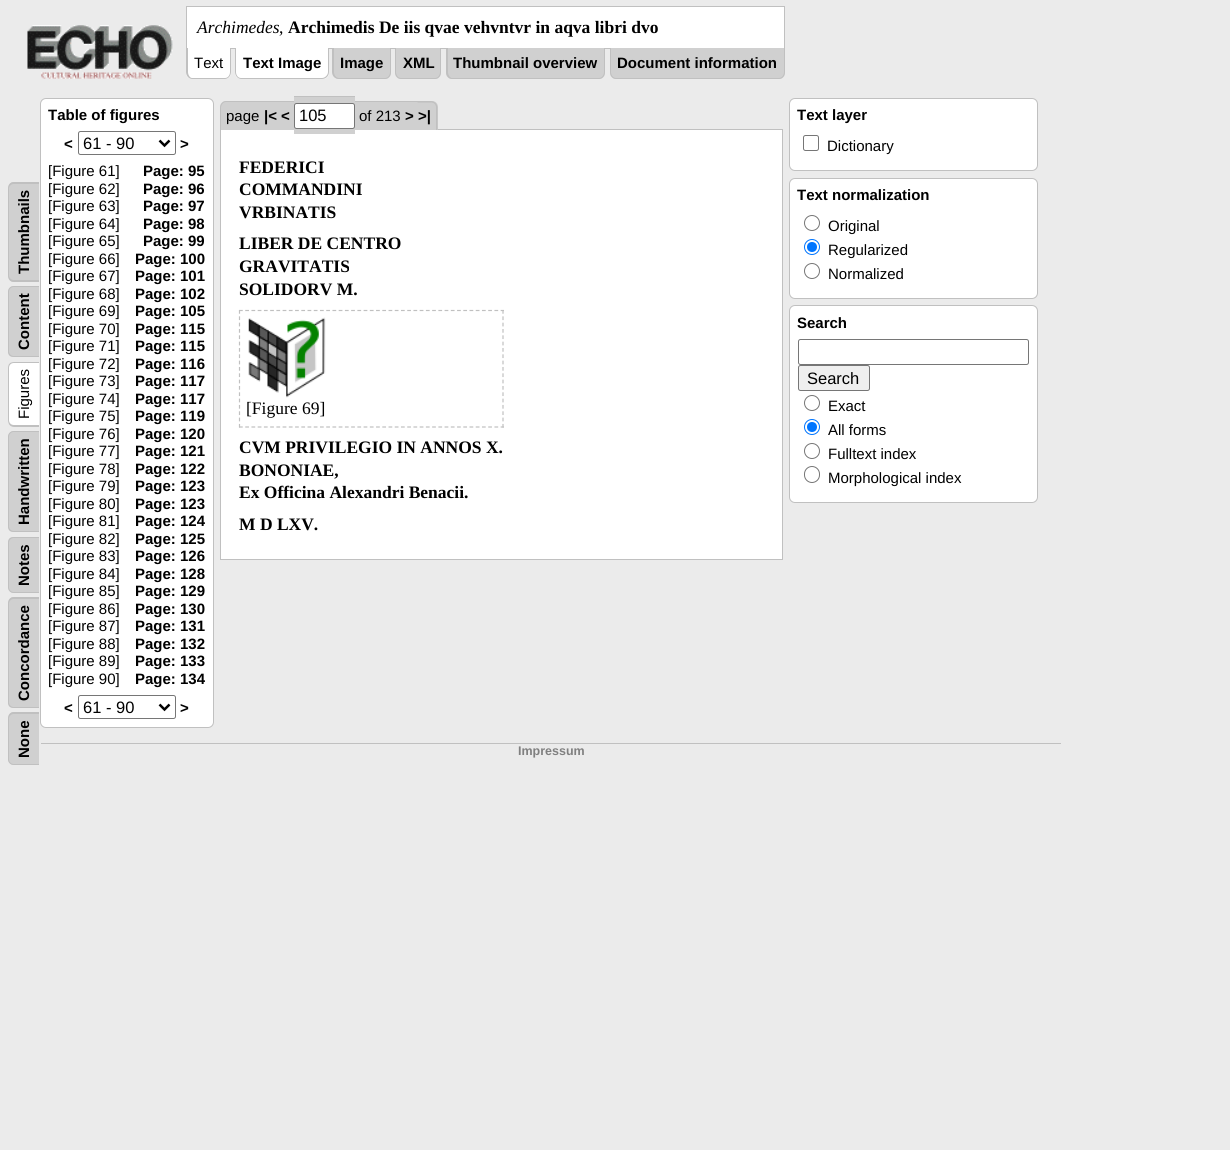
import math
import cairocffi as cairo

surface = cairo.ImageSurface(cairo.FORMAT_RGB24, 1230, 1150)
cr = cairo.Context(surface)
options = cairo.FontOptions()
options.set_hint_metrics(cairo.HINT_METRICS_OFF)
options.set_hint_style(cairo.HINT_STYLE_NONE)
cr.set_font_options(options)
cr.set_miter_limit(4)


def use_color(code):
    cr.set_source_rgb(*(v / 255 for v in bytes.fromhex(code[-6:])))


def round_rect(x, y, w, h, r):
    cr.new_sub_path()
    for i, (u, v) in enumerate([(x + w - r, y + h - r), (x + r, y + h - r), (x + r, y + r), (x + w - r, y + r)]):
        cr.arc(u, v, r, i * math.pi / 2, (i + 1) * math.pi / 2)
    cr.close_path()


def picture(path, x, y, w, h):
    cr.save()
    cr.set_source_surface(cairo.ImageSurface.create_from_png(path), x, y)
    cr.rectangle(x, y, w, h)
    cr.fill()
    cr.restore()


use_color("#ebebeb")
cr.paint()
picture("img1.png", 27, 25, 146, 54)
use_color("#ffffff")
cr.rectangle(186.5, 6.5, 598, 42)
cr.fill_preserve()
use_color("#c0c0c0")
cr.set_line_width(1)
cr.stroke()
cr.select_font_face("Liberation Serif", cairo.FONT_SLANT_ITALIC)
cr.set_font_size(17.5)
use_color("#000000")
cr.move_to(197, 33)
cr.show_text("Archimedes")
cr.select_font_face("Liberation Serif")
cr.move_to(279, 33)
cr.show_text(",")
cr.select_font_face("Liberation Serif", cairo.FONT_SLANT_NORMAL, cairo.FONT_WEIGHT_BOLD)
cr.move_to(288, 33)
cr.show_text("Archimedis De iis qvae vehvntvr in aqva libri dvo")
use_color("#ffffff")
cr.new_path()
cr.move_to(186, 48)
cr.line_to(231, 48)
cr.line_to(231, 73)
cr.curve_to(231, 76.5, 228.5, 79, 225, 79)
cr.line_to(192, 79)
cr.curve_to(188.5, 79, 186, 76.5, 186, 73)
cr.close_path()
cr.fill()
use_color("#c0c0c0")
cr.set_fill_rule(cairo.FILL_RULE_EVEN_ODD)
cr.new_path()
cr.move_to(186, 48)
cr.line_to(231, 48)
cr.line_to(231, 72)
cr.curve_to(231, 76, 228, 79, 225, 79)
cr.line_to(192, 79)
cr.curve_to(189, 79, 186, 76, 186, 72)
cr.close_path()
cr.move_to(188, 48)
cr.line_to(230, 48)
cr.line_to(230, 72)
cr.curve_to(230, 75, 228, 78, 225, 78)
cr.line_to(192, 78)
cr.curve_to(190, 78, 188, 75, 188, 72)
cr.close_path()
cr.fill()
cr.select_font_face("Liberation Sans")
cr.set_font_size(15)
use_color("#000000")
cr.move_to(194, 68)
cr.show_text("Text")
use_color("#ffffff")
cr.new_path()
cr.move_to(235, 48)
cr.line_to(329, 48)
cr.line_to(329, 73)
cr.curve_to(329, 76.5, 326.5, 79, 323, 79)
cr.line_to(241, 79)
cr.curve_to(237.5, 79, 235, 76.5, 235, 73)
cr.close_path()
cr.fill()
use_color("#c0c0c0")
cr.new_path()
cr.move_to(235, 48)
cr.line_to(329, 48)
cr.line_to(329, 72)
cr.curve_to(329, 76, 326, 79, 322, 79)
cr.line_to(241, 79)
cr.curve_to(238, 79, 235, 76, 235, 72)
cr.close_path()
cr.move_to(236, 48)
cr.line_to(328, 48)
cr.line_to(328, 72)
cr.curve_to(328, 75, 325, 78, 322, 78)
cr.line_to(241, 78)
cr.curve_to(238, 78, 236, 75, 236, 72)
cr.close_path()
cr.fill()
cr.select_font_face("Liberation Sans", cairo.FONT_SLANT_NORMAL, cairo.FONT_WEIGHT_BOLD)
use_color("#000000")
cr.move_to(243, 68)
cr.show_text("Text Image")
use_color("#d0d0d0")
cr.new_path()
cr.move_to(333, 48)
cr.line_to(391, 48)
cr.line_to(391, 73)
cr.curve_to(391, 76.5, 388.5, 79, 385, 79)
cr.line_to(339, 79)
cr.curve_to(335.5, 79, 333, 76.5, 333, 73)
cr.close_path()
cr.fill()
use_color("#c0c0c0")
cr.new_path()
cr.move_to(332, 48)
cr.line_to(391, 48)
cr.line_to(391, 72)
cr.curve_to(391, 76, 388, 79, 385, 79)
cr.line_to(339, 79)
cr.curve_to(335, 79, 332, 76, 332, 72)
cr.close_path()
cr.move_to(334, 48)
cr.line_to(390, 48)
cr.line_to(390, 72)
cr.curve_to(390, 75, 388, 78, 385, 78)
cr.line_to(339, 78)
cr.curve_to(336, 78, 334, 75, 334, 72)
cr.close_path()
cr.fill()
use_color("#000000")
cr.move_to(340, 68)
cr.show_text("Image")
use_color("#d0d0d0")
cr.new_path()
cr.move_to(395, 48)
cr.line_to(441, 48)
cr.line_to(441, 73)
cr.curve_to(441, 76.5, 438.5, 79, 435, 79)
cr.line_to(401, 79)
cr.curve_to(397.5, 79, 395, 76.5, 395, 73)
cr.close_path()
cr.fill()
use_color("#c0c0c0")
cr.new_path()
cr.move_to(395, 48)
cr.line_to(441, 48)
cr.line_to(441, 72)
cr.curve_to(441, 76, 438, 79, 435, 79)
cr.line_to(401, 79)
cr.curve_to(398, 79, 395, 76, 395, 72)
cr.close_path()
cr.move_to(396, 48)
cr.line_to(440, 48)
cr.line_to(440, 72)
cr.curve_to(440, 75, 438, 78, 435, 78)
cr.line_to(401, 78)
cr.curve_to(398, 78, 396, 75, 396, 72)
cr.close_path()
cr.fill()
use_color("#000000")
cr.move_to(403, 68)
cr.show_text("XML")
use_color("#d0d0d0")
cr.new_path()
cr.move_to(446, 48)
cr.line_to(605, 48)
cr.line_to(605, 73)
cr.curve_to(605, 76.5, 602.5, 79, 599, 79)
cr.line_to(452, 79)
cr.curve_to(448.5, 79, 446, 76.5, 446, 73)
cr.close_path()
cr.fill()
use_color("#c0c0c0")
cr.new_path()
cr.move_to(446, 48)
cr.line_to(605, 48)
cr.line_to(605, 72)
cr.curve_to(605, 76, 602, 79, 599, 79)
cr.line_to(452, 79)
cr.curve_to(449, 79, 446, 76, 446, 72)
cr.close_path()
cr.move_to(448, 48)
cr.line_to(604, 48)
cr.line_to(604, 72)
cr.curve_to(604, 75, 602, 78, 599, 78)
cr.line_to(452, 78)
cr.curve_to(450, 78, 448, 75, 448, 72)
cr.close_path()
cr.fill()
use_color("#000000")
cr.move_to(453, 68)
cr.show_text("Thumbnail overview")
use_color("#d0d0d0")
cr.new_path()
cr.move_to(610, 48)
cr.line_to(785, 48)
cr.line_to(785, 73)
cr.curve_to(785, 76.5, 782.5, 79, 779, 79)
cr.line_to(616, 79)
cr.curve_to(612.5, 79, 610, 76.5, 610, 73)
cr.close_path()
cr.fill()
use_color("#c0c0c0")
cr.new_path()
cr.move_to(610, 48)
cr.line_to(785, 48)
cr.line_to(785, 72)
cr.curve_to(785, 76, 782, 79, 779, 79)
cr.line_to(616, 79)
cr.curve_to(613, 79, 610, 76, 610, 72)
cr.close_path()
cr.move_to(611, 48)
cr.line_to(784, 48)
cr.line_to(784, 72)
cr.curve_to(784, 75, 782, 78, 779, 78)
cr.line_to(616, 78)
cr.curve_to(613, 78, 611, 75, 611, 72)
cr.close_path()
cr.fill()
use_color("#000000")
cr.move_to(617, 68)
cr.show_text("Document information")
use_color("#d0d0d0")
cr.set_fill_rule(cairo.FILL_RULE_WINDING)
cr.new_path()
cr.move_to(8, 275)
cr.line_to(8, 189)
cr.curve_to(8, 185, 10, 182, 14, 182)
cr.line_to(39, 182)
cr.line_to(39, 282)
cr.line_to(14, 282)
cr.curve_to(10, 282, 8, 279, 8, 275)
cr.close_path()
cr.fill()
use_color("#c0c0c0")
cr.set_fill_rule(cairo.FILL_RULE_EVEN_ODD)
cr.new_path()
cr.move_to(8, 275)
cr.line_to(8, 189)
cr.curve_to(8, 185, 10, 182, 14, 182)
cr.line_to(39, 182)
cr.line_to(39, 282)
cr.line_to(14, 282)
cr.curve_to(10, 282, 8, 279, 8, 275)
cr.close_path()
cr.move_to(9, 275)
cr.line_to(9, 189)
cr.curve_to(9, 186, 11, 184, 14, 184)
cr.line_to(39, 184)
cr.line_to(39, 280)
cr.line_to(14, 280)
cr.curve_to(11, 280, 9, 278, 9, 275)
cr.close_path()
cr.fill()
use_color("#000000")
cr.save()
cr.translate(29, 274)
cr.rotate(-90 * math.pi / 180)
cr.move_to(0, 0)
cr.show_text("Thumbnails")
cr.restore()
use_color("#d0d0d0")
cr.set_fill_rule(cairo.FILL_RULE_WINDING)
cr.new_path()
cr.move_to(8, 351)
cr.line_to(8, 292)
cr.curve_to(8, 289, 10, 286, 14, 286)
cr.line_to(39, 286)
cr.line_to(39, 357)
cr.line_to(14, 357)
cr.curve_to(10, 357, 8, 355, 8, 351)
cr.close_path()
cr.fill()
use_color("#c0c0c0")
cr.set_fill_rule(cairo.FILL_RULE_EVEN_ODD)
cr.new_path()
cr.move_to(8, 351)
cr.line_to(8, 292)
cr.curve_to(8, 289, 10, 286, 14, 286)
cr.line_to(39, 286)
cr.line_to(39, 357)
cr.line_to(14, 357)
cr.curve_to(10, 357, 8, 355, 8, 351)
cr.close_path()
cr.move_to(9, 351)
cr.line_to(9, 292)
cr.curve_to(9, 289, 11, 287, 14, 287)
cr.line_to(39, 287)
cr.line_to(39, 356)
cr.line_to(14, 356)
cr.curve_to(11, 356, 9, 354, 9, 351)
cr.close_path()
cr.fill()
use_color("#000000")
cr.save()
cr.translate(29, 350)
cr.rotate(-90 * math.pi / 180)
cr.move_to(0, 0)
cr.show_text("Content")
cr.restore()
use_color("#ffffff")
cr.set_fill_rule(cairo.FILL_RULE_WINDING)
cr.new_path()
cr.move_to(8, 420)
cr.line_to(8, 368)
cr.curve_to(8, 364, 10, 362, 14, 362)
cr.line_to(39, 362)
cr.line_to(39, 427)
cr.line_to(14, 427)
cr.curve_to(10, 427, 8, 424, 8, 420)
cr.close_path()
cr.fill()
use_color("#c0c0c0")
cr.set_fill_rule(cairo.FILL_RULE_EVEN_ODD)
cr.new_path()
cr.move_to(8, 420)
cr.line_to(8, 368)
cr.curve_to(8, 364, 10, 362, 14, 362)
cr.line_to(39, 362)
cr.line_to(39, 427)
cr.line_to(14, 427)
cr.curve_to(10, 427, 8, 424, 8, 420)
cr.close_path()
cr.move_to(9, 420)
cr.line_to(9, 368)
cr.curve_to(9, 365, 11, 363, 14, 363)
cr.line_to(39, 363)
cr.line_to(39, 425)
cr.line_to(14, 425)
cr.curve_to(11, 425, 9, 423, 9, 420)
cr.close_path()
cr.fill()
cr.select_font_face("Liberation Sans")
use_color("#000000")
cr.save()
cr.translate(29, 419)
cr.rotate(-90 * math.pi / 180)
cr.move_to(0, 0)
cr.show_text("Figures")
cr.restore()
use_color("#d0d0d0")
cr.set_fill_rule(cairo.FILL_RULE_WINDING)
cr.new_path()
cr.move_to(8, 526)
cr.line_to(8, 437)
cr.curve_to(8, 434, 10, 431, 14, 431)
cr.line_to(39, 431)
cr.line_to(39, 532)
cr.line_to(14, 532)
cr.curve_to(10, 532, 8, 530, 8, 526)
cr.close_path()
cr.fill()
use_color("#c0c0c0")
cr.set_fill_rule(cairo.FILL_RULE_EVEN_ODD)
cr.new_path()
cr.move_to(8, 526)
cr.line_to(8, 437)
cr.curve_to(8, 434, 10, 431, 14, 431)
cr.line_to(39, 431)
cr.line_to(39, 532)
cr.line_to(14, 532)
cr.curve_to(10, 532, 8, 530, 8, 526)
cr.close_path()
cr.move_to(9, 526)
cr.line_to(9, 437)
cr.curve_to(9, 434, 11, 432, 14, 432)
cr.line_to(39, 432)
cr.line_to(39, 531)
cr.line_to(14, 531)
cr.curve_to(11, 531, 9, 529, 9, 526)
cr.close_path()
cr.fill()
cr.select_font_face("Liberation Sans", cairo.FONT_SLANT_NORMAL, cairo.FONT_WEIGHT_BOLD)
use_color("#000000")
cr.save()
cr.translate(29, 525)
cr.rotate(-90 * math.pi / 180)
cr.move_to(0, 0)
cr.show_text("Handwritten")
cr.restore()
use_color("#d0d0d0")
cr.set_fill_rule(cairo.FILL_RULE_WINDING)
cr.new_path()
cr.move_to(8, 587)
cr.line_to(8, 543)
cr.curve_to(8, 539, 10, 537, 14, 537)
cr.line_to(39, 537)
cr.line_to(39, 593)
cr.line_to(14, 593)
cr.curve_to(10, 593, 8, 590, 8, 587)
cr.close_path()
cr.fill()
use_color("#c0c0c0")
cr.set_fill_rule(cairo.FILL_RULE_EVEN_ODD)
cr.new_path()
cr.move_to(8, 587)
cr.line_to(8, 543)
cr.curve_to(8, 539, 10, 537, 14, 537)
cr.line_to(39, 537)
cr.line_to(39, 593)
cr.line_to(14, 593)
cr.curve_to(10, 593, 8, 590, 8, 587)
cr.close_path()
cr.move_to(9, 587)
cr.line_to(9, 543)
cr.curve_to(9, 540, 11, 538, 14, 538)
cr.line_to(39, 538)
cr.line_to(39, 592)
cr.line_to(14, 592)
cr.curve_to(11, 592, 9, 590, 9, 587)
cr.close_path()
cr.fill()
use_color("#000000")
cr.save()
cr.translate(29, 586)
cr.rotate(-90 * math.pi / 180)
cr.move_to(0, 0)
cr.show_text("Notes")
cr.restore()
use_color("#d0d0d0")
cr.set_fill_rule(cairo.FILL_RULE_WINDING)
cr.new_path()
cr.move_to(8, 702)
cr.line_to(8, 604)
cr.curve_to(8, 600, 10, 597, 14, 597)
cr.line_to(39, 597)
cr.line_to(39, 708)
cr.line_to(14, 708)
cr.curve_to(10, 708, 8, 706, 8, 702)
cr.close_path()
cr.fill()
use_color("#c0c0c0")
cr.set_fill_rule(cairo.FILL_RULE_EVEN_ODD)
cr.new_path()
cr.move_to(8, 702)
cr.line_to(8, 604)
cr.curve_to(8, 600, 10, 597, 14, 597)
cr.line_to(39, 597)
cr.line_to(39, 708)
cr.line_to(14, 708)
cr.curve_to(10, 708, 8, 706, 8, 702)
cr.close_path()
cr.move_to(9, 702)
cr.line_to(9, 604)
cr.curve_to(9, 601, 11, 599, 14, 599)
cr.line_to(39, 599)
cr.line_to(39, 707)
cr.line_to(14, 707)
cr.curve_to(11, 707, 9, 705, 9, 702)
cr.close_path()
cr.fill()
use_color("#000000")
cr.save()
cr.translate(29, 701)
cr.rotate(-90 * math.pi / 180)
cr.move_to(0, 0)
cr.show_text("Concordance")
cr.restore()
use_color("#d0d0d0")
cr.set_fill_rule(cairo.FILL_RULE_WINDING)
cr.new_path()
cr.move_to(8, 759)
cr.line_to(8, 719)
cr.curve_to(8, 715, 10, 712, 14, 712)
cr.line_to(39, 712)
cr.line_to(39, 765)
cr.line_to(14, 765)
cr.curve_to(10, 765, 8, 762, 8, 759)
cr.close_path()
cr.fill()
use_color("#c0c0c0")
cr.set_fill_rule(cairo.FILL_RULE_EVEN_ODD)
cr.new_path()
cr.move_to(8, 759)
cr.line_to(8, 719)
cr.curve_to(8, 715, 10, 712, 14, 712)
cr.line_to(39, 712)
cr.line_to(39, 765)
cr.line_to(14, 765)
cr.curve_to(10, 765, 8, 762, 8, 759)
cr.close_path()
cr.move_to(9, 759)
cr.line_to(9, 719)
cr.curve_to(9, 716, 11, 714, 14, 714)
cr.line_to(39, 714)
cr.line_to(39, 764)
cr.line_to(14, 764)
cr.curve_to(11, 764, 9, 762, 9, 759)
cr.close_path()
cr.fill()
use_color("#000000")
cr.save()
cr.translate(29, 758)
cr.rotate(-90 * math.pi / 180)
cr.move_to(0, 0)
cr.show_text("None")
cr.restore()
use_color("#ffffff")
round_rect(40.5, 98.5, 173, 629, 5.5)
cr.fill_preserve()
use_color("#c0c0c0")
cr.stroke()
use_color("#000000")
cr.move_to(48, 120)
cr.show_text("Table of figures")
cr.move_to(64, 149)
cr.show_text("<")
round_rect(78.5, 131.5, 97, 23, 2)
use_color("#767676")
cr.stroke()
cr.new_path()
cr.move_to(159.5, 140.5)
cr.line_to(164.5, 145.5)
cr.line_to(169.5, 140.5)
use_color("#000000")
cr.set_line_width(2.5)
cr.stroke()
cr.select_font_face("Liberation Sans")
cr.set_font_size(16.5)
cr.move_to(83, 149)
cr.show_text("61 - 90")
cr.select_font_face("Liberation Sans", cairo.FONT_SLANT_NORMAL, cairo.FONT_WEIGHT_BOLD)
cr.set_font_size(15)
cr.move_to(180, 149)
cr.show_text(">")
cr.select_font_face("Liberation Sans")
cr.move_to(48, 176)
cr.show_text("[Figure 61]")
cr.select_font_face("Liberation Sans", cairo.FONT_SLANT_NORMAL, cairo.FONT_WEIGHT_BOLD)
cr.move_to(143, 176)
cr.show_text("Page: 95")
cr.select_font_face("Liberation Sans")
cr.move_to(48, 194)
cr.show_text("[Figure 62]")
cr.select_font_face("Liberation Sans", cairo.FONT_SLANT_NORMAL, cairo.FONT_WEIGHT_BOLD)
cr.move_to(143, 194)
cr.show_text("Page: 96")
cr.select_font_face("Liberation Sans")
cr.move_to(48, 211)
cr.show_text("[Figure 63]")
cr.select_font_face("Liberation Sans", cairo.FONT_SLANT_NORMAL, cairo.FONT_WEIGHT_BOLD)
cr.move_to(143, 211)
cr.show_text("Page: 97")
cr.select_font_face("Liberation Sans")
cr.move_to(48, 229)
cr.show_text("[Figure 64]")
cr.select_font_face("Liberation Sans", cairo.FONT_SLANT_NORMAL, cairo.FONT_WEIGHT_BOLD)
cr.move_to(143, 229)
cr.show_text("Page: 98")
cr.select_font_face("Liberation Sans")
cr.move_to(48, 246)
cr.show_text("[Figure 65]")
cr.select_font_face("Liberation Sans", cairo.FONT_SLANT_NORMAL, cairo.FONT_WEIGHT_BOLD)
cr.move_to(143, 246)
cr.show_text("Page: 99")
cr.select_font_face("Liberation Sans")
cr.move_to(48, 264)
cr.show_text("[Figure 66]")
cr.select_font_face("Liberation Sans", cairo.FONT_SLANT_NORMAL, cairo.FONT_WEIGHT_BOLD)
cr.move_to(135, 264)
cr.show_text("Page: 100")
cr.select_font_face("Liberation Sans")
cr.move_to(48, 281)
cr.show_text("[Figure 67]")
cr.select_font_face("Liberation Sans", cairo.FONT_SLANT_NORMAL, cairo.FONT_WEIGHT_BOLD)
cr.move_to(135, 281)
cr.show_text("Page: 101")
cr.select_font_face("Liberation Sans")
cr.move_to(48, 299)
cr.show_text("[Figure 68]")
cr.select_font_face("Liberation Sans", cairo.FONT_SLANT_NORMAL, cairo.FONT_WEIGHT_BOLD)
cr.move_to(135, 299)
cr.show_text("Page: 102")
cr.select_font_face("Liberation Sans")
cr.move_to(48, 316)
cr.show_text("[Figure 69]")
cr.select_font_face("Liberation Sans", cairo.FONT_SLANT_NORMAL, cairo.FONT_WEIGHT_BOLD)
cr.move_to(135, 316)
cr.show_text("Page: 105")
cr.select_font_face("Liberation Sans")
cr.move_to(48, 334)
cr.show_text("[Figure 70]")
cr.select_font_face("Liberation Sans", cairo.FONT_SLANT_NORMAL, cairo.FONT_WEIGHT_BOLD)
cr.move_to(135, 334)
cr.show_text("Page: 115")
cr.select_font_face("Liberation Sans")
cr.move_to(48, 351)
cr.show_text("[Figure 71]")
cr.select_font_face("Liberation Sans", cairo.FONT_SLANT_NORMAL, cairo.FONT_WEIGHT_BOLD)
cr.move_to(135, 351)
cr.show_text("Page: 115")
cr.select_font_face("Liberation Sans")
cr.move_to(48, 369)
cr.show_text("[Figure 72]")
cr.select_font_face("Liberation Sans", cairo.FONT_SLANT_NORMAL, cairo.FONT_WEIGHT_BOLD)
cr.move_to(135, 369)
cr.show_text("Page: 116")
cr.select_font_face("Liberation Sans")
cr.move_to(48, 386)
cr.show_text("[Figure 73]")
cr.select_font_face("Liberation Sans", cairo.FONT_SLANT_NORMAL, cairo.FONT_WEIGHT_BOLD)
cr.move_to(135, 386)
cr.show_text("Page: 117")
cr.select_font_face("Liberation Sans")
cr.move_to(48, 404)
cr.show_text("[Figure 74]")
cr.select_font_face("Liberation Sans", cairo.FONT_SLANT_NORMAL, cairo.FONT_WEIGHT_BOLD)
cr.move_to(135, 404)
cr.show_text("Page: 117")
cr.select_font_face("Liberation Sans")
cr.move_to(48, 421)
cr.show_text("[Figure 75]")
cr.select_font_face("Liberation Sans", cairo.FONT_SLANT_NORMAL, cairo.FONT_WEIGHT_BOLD)
cr.move_to(135, 421)
cr.show_text("Page: 119")
cr.select_font_face("Liberation Sans")
cr.move_to(48, 439)
cr.show_text("[Figure 76]")
cr.select_font_face("Liberation Sans", cairo.FONT_SLANT_NORMAL, cairo.FONT_WEIGHT_BOLD)
cr.move_to(135, 439)
cr.show_text("Page: 120")
cr.select_font_face("Liberation Sans")
cr.move_to(48, 456)
cr.show_text("[Figure 77]")
cr.select_font_face("Liberation Sans", cairo.FONT_SLANT_NORMAL, cairo.FONT_WEIGHT_BOLD)
cr.move_to(135, 456)
cr.show_text("Page: 121")
cr.select_font_face("Liberation Sans")
cr.move_to(48, 474)
cr.show_text("[Figure 78]")
cr.select_font_face("Liberation Sans", cairo.FONT_SLANT_NORMAL, cairo.FONT_WEIGHT_BOLD)
cr.move_to(135, 474)
cr.show_text("Page: 122")
cr.select_font_face("Liberation Sans")
cr.move_to(48, 491)
cr.show_text("[Figure 79]")
cr.select_font_face("Liberation Sans", cairo.FONT_SLANT_NORMAL, cairo.FONT_WEIGHT_BOLD)
cr.move_to(135, 491)
cr.show_text("Page: 123")
cr.select_font_face("Liberation Sans")
cr.move_to(48, 509)
cr.show_text("[Figure 80]")
cr.select_font_face("Liberation Sans", cairo.FONT_SLANT_NORMAL, cairo.FONT_WEIGHT_BOLD)
cr.move_to(135, 509)
cr.show_text("Page: 123")
cr.select_font_face("Liberation Sans")
cr.move_to(48, 526)
cr.show_text("[Figure 81]")
cr.select_font_face("Liberation Sans", cairo.FONT_SLANT_NORMAL, cairo.FONT_WEIGHT_BOLD)
cr.move_to(135, 526)
cr.show_text("Page: 124")
cr.select_font_face("Liberation Sans")
cr.move_to(48, 544)
cr.show_text("[Figure 82]")
cr.select_font_face("Liberation Sans", cairo.FONT_SLANT_NORMAL, cairo.FONT_WEIGHT_BOLD)
cr.move_to(135, 544)
cr.show_text("Page: 125")
cr.select_font_face("Liberation Sans")
cr.move_to(48, 561)
cr.show_text("[Figure 83]")
cr.select_font_face("Liberation Sans", cairo.FONT_SLANT_NORMAL, cairo.FONT_WEIGHT_BOLD)
cr.move_to(135, 561)
cr.show_text("Page: 126")
cr.select_font_face("Liberation Sans")
cr.move_to(48, 579)
cr.show_text("[Figure 84]")
cr.select_font_face("Liberation Sans", cairo.FONT_SLANT_NORMAL, cairo.FONT_WEIGHT_BOLD)
cr.move_to(135, 579)
cr.show_text("Page: 128")
cr.select_font_face("Liberation Sans")
cr.move_to(48, 596)
cr.show_text("[Figure 85]")
cr.select_font_face("Liberation Sans", cairo.FONT_SLANT_NORMAL, cairo.FONT_WEIGHT_BOLD)
cr.move_to(135, 596)
cr.show_text("Page: 129")
cr.select_font_face("Liberation Sans")
cr.move_to(48, 614)
cr.show_text("[Figure 86]")
cr.select_font_face("Liberation Sans", cairo.FONT_SLANT_NORMAL, cairo.FONT_WEIGHT_BOLD)
cr.move_to(135, 614)
cr.show_text("Page: 130")
cr.select_font_face("Liberation Sans")
cr.move_to(48, 631)
cr.show_text("[Figure 87]")
cr.select_font_face("Liberation Sans", cairo.FONT_SLANT_NORMAL, cairo.FONT_WEIGHT_BOLD)
cr.move_to(135, 631)
cr.show_text("Page: 131")
cr.select_font_face("Liberation Sans")
cr.move_to(48, 649)
cr.show_text("[Figure 88]")
cr.select_font_face("Liberation Sans", cairo.FONT_SLANT_NORMAL, cairo.FONT_WEIGHT_BOLD)
cr.move_to(135, 649)
cr.show_text("Page: 132")
cr.select_font_face("Liberation Sans")
cr.move_to(48, 666)
cr.show_text("[Figure 89]")
cr.select_font_face("Liberation Sans", cairo.FONT_SLANT_NORMAL, cairo.FONT_WEIGHT_BOLD)
cr.move_to(135, 666)
cr.show_text("Page: 133")
cr.select_font_face("Liberation Sans")
cr.move_to(48, 684)
cr.show_text("[Figure 90]")
cr.select_font_face("Liberation Sans", cairo.FONT_SLANT_NORMAL, cairo.FONT_WEIGHT_BOLD)
cr.move_to(135, 684)
cr.show_text("Page: 134")
cr.move_to(64, 713)
cr.show_text("<")
round_rect(78.5, 695.5, 97, 23, 2)
use_color("#767676")
cr.set_line_width(1)
cr.stroke()
cr.new_path()
cr.move_to(159.5, 704.5)
cr.line_to(164.5, 709.5)
cr.line_to(169.5, 704.5)
use_color("#000000")
cr.set_line_width(2.5)
cr.stroke()
cr.select_font_face("Liberation Sans")
cr.set_font_size(16.5)
cr.move_to(83, 713)
cr.show_text("61 - 90")
cr.select_font_face("Liberation Sans", cairo.FONT_SLANT_NORMAL, cairo.FONT_WEIGHT_BOLD)
cr.set_font_size(15)
cr.move_to(180, 713)
cr.show_text(">")
use_color("#ffffff")
cr.rectangle(220.5, 129.5, 562, 430)
cr.fill_preserve()
use_color("#c0c0c0")
cr.set_line_width(1)
cr.stroke()
use_color("#d0d0d0")
cr.new_path()
cr.move_to(226, 101)
cr.line_to(264, 101)
cr.line_to(264, 130)
cr.line_to(220, 130)
cr.line_to(220, 107)
cr.curve_to(220, 103.5, 222.5, 101, 226, 101)
cr.close_path()
cr.fill()
use_color("#c0c0c0")
cr.new_path()
cr.move_to(226, 101)
cr.line_to(264, 101)
cr.line_to(264, 130)
cr.line_to(220, 130)
cr.line_to(220, 108)
cr.curve_to(220, 104, 223, 101, 226, 101)
cr.close_path()
cr.move_to(226, 102)
cr.line_to(264, 102)
cr.line_to(264, 130)
cr.line_to(221, 130)
cr.line_to(221, 108)
cr.curve_to(221, 105, 223, 102, 226, 102)
cr.close_path()
cr.fill()
use_color("#d0d0d0")
cr.rectangle(264, 102, 12, 28)
cr.fill()
use_color("#c0c0c0")
cr.rectangle(264, 101, 12, 1)
cr.fill()
use_color("#d0d0d0")
cr.rectangle(276, 101, 5, 29)
cr.fill()
use_color("#c0c0c0")
cr.rectangle(276, 101, 14, 1)
cr.fill()
use_color("#d0d0d0")
cr.rectangle(281, 102, 9, 28)
cr.fill()
cr.rectangle(290, 101, 4, 29)
cr.fill()
use_color("#c0c0c0")
cr.rectangle(290, 101, 4, 1)
cr.fill()
use_color("#d0d0d0")
cr.rectangle(294, 97, 61, 37)
cr.fill()
use_color("#c0c0c0")
cr.rectangle(294, 96, 61, 1)
cr.fill()
use_color("#d0d0d0")
cr.rectangle(355, 101, 4, 29)
cr.fill()
use_color("#c0c0c0")
cr.rectangle(355, 101, 59, 1)
cr.fill()
use_color("#d0d0d0")
cr.rectangle(359, 102, 55, 28)
cr.fill()
cr.rectangle(414, 101, 4, 29)
cr.fill()
use_color("#c0c0c0")
cr.rectangle(414, 101, 4, 1)
cr.fill()
use_color("#d0d0d0")
cr.new_path()
cr.move_to(418, 101)
cr.line_to(432, 101)
cr.curve_to(435.5, 101, 438, 103.5, 438, 107)
cr.line_to(438, 130)
cr.line_to(418, 130)
cr.close_path()
cr.fill()
use_color("#c0c0c0")
cr.new_path()
cr.move_to(417.5, 101)
cr.line_to(431, 101)
cr.curve_to(434.5, 101, 437.5, 104, 437.5, 107.5)
cr.line_to(437.5, 130)
cr.line_to(417.5, 130)
cr.close_path()
cr.move_to(417.5, 102.5)
cr.line_to(431, 102.5)
cr.curve_to(434, 102.5, 436, 104.5, 436, 107.5)
cr.line_to(436, 130)
cr.line_to(417.5, 130)
cr.close_path()
cr.fill()
cr.select_font_face("Liberation Sans")
use_color("#000000")
cr.move_to(226, 121)
cr.show_text("page")
cr.select_font_face("Liberation Sans", cairo.FONT_SLANT_NORMAL, cairo.FONT_WEIGHT_BOLD)
cr.move_to(264, 121)
cr.show_text("|< <")
use_color("#ffffff")
round_rect(294.5, 103.5, 60, 25, 2)
cr.fill_preserve()
use_color("#767676")
cr.stroke()
cr.select_font_face("Liberation Sans")
cr.set_font_size(16.5)
use_color("#000000")
cr.move_to(299, 121)
cr.show_text("105")
cr.set_font_size(15)
cr.move_to(359, 121)
cr.show_text("of 213")
cr.select_font_face("Liberation Sans", cairo.FONT_SLANT_NORMAL, cairo.FONT_WEIGHT_BOLD)
cr.move_to(405, 121)
cr.show_text("> >|")
cr.select_font_face("Liberation Serif", cairo.FONT_SLANT_NORMAL, cairo.FONT_WEIGHT_BOLD)
cr.set_font_size(17.5)
cr.move_to(239, 173)
cr.show_text("FEDERICI")
cr.move_to(239, 195)
cr.show_text("COMMANDINI")
cr.move_to(239, 218)
cr.show_text("VRBINATIS")
cr.move_to(239, 249)
cr.show_text("LIBER DE CENTRO")
cr.move_to(239, 272)
cr.show_text("GRAVITATIS")
cr.move_to(239, 295)
cr.show_text("SOLIDORV M.")
cr.new_path()
cr.move_to(239, 310.5)
cr.line_to(504, 310.5)
use_color("#c0c0c0")
cr.set_line_width(1.2)
cr.set_dash([3.75, 2.48])
cr.stroke()
cr.new_path()
cr.move_to(503, 310)
cr.line_to(503, 427.5)
cr.set_dash([3.75, 2.58])
cr.stroke()
cr.new_path()
cr.move_to(239, 427)
cr.line_to(504, 427)
cr.set_dash([3.75, 2.48])
cr.stroke()
cr.new_path()
cr.move_to(239.5, 310)
cr.line_to(239.5, 427.5)
cr.set_dash([3.75, 2.58])
cr.stroke()
picture("img2.png", 248, 317, 78, 81)
cr.select_font_face("Liberation Serif")
use_color("#000000")
cr.move_to(246, 414)
cr.show_text("[Figure 69]")
cr.select_font_face("Liberation Serif", cairo.FONT_SLANT_NORMAL, cairo.FONT_WEIGHT_BOLD)
cr.move_to(239, 453)
cr.show_text("CVM PRIVILEGIO IN ANNOS X.")
cr.move_to(239, 476)
cr.show_text("BONONIAE,")
cr.move_to(239, 498)
cr.show_text("Ex Officina Alexandri Benacii.")
cr.move_to(239, 530)
cr.show_text("M D LXV.")
use_color("#ffffff")
round_rect(789.5, 98.5, 248, 72, 5.5)
cr.fill_preserve()
use_color("#c0c0c0")
cr.set_line_width(1)
cr.set_dash([])
cr.stroke()
cr.select_font_face("Liberation Sans", cairo.FONT_SLANT_NORMAL, cairo.FONT_WEIGHT_BOLD)
cr.set_font_size(15)
use_color("#000000")
cr.move_to(797, 120)
cr.show_text("Text layer")
round_rect(803.5, 135.5, 15, 15, 2)
use_color("#767676")
cr.stroke()
cr.select_font_face("Liberation Sans")
use_color("#000000")
cr.move_to(827, 151)
cr.show_text("Dictionary")
use_color("#ffffff")
round_rect(789.5, 178.5, 248, 120, 5.5)
cr.fill_preserve()
use_color("#c0c0c0")
cr.stroke()
cr.select_font_face("Liberation Sans", cairo.FONT_SLANT_NORMAL, cairo.FONT_WEIGHT_BOLD)
use_color("#000000")
cr.move_to(797, 200)
cr.show_text("Text normalization")
cr.new_path()
cr.arc(812, 223, 7.5, 0, 2 * math.pi)
use_color("#767676")
cr.stroke()
cr.select_font_face("Liberation Sans")
use_color("#000000")
cr.move_to(828, 231)
cr.show_text("Original")
cr.new_path()
cr.arc(812, 247, 7.5, 0, 2 * math.pi)
use_color("#0075ff")
cr.stroke()
cr.arc(812, 247, 5, 0, 2 * math.pi)
cr.fill()
use_color("#000000")
cr.move_to(828, 255)
cr.show_text("Regularized")
cr.new_path()
cr.arc(812, 271, 7.5, 0, 2 * math.pi)
use_color("#767676")
cr.stroke()
use_color("#000000")
cr.move_to(828, 279)
cr.show_text("Normalized")
use_color("#ffffff")
round_rect(789.5, 305.5, 248, 197, 5.5)
cr.fill_preserve()
use_color("#c0c0c0")
cr.stroke()
cr.select_font_face("Liberation Sans", cairo.FONT_SLANT_NORMAL, cairo.FONT_WEIGHT_BOLD)
use_color("#000000")
cr.move_to(797, 328)
cr.show_text("Search")
round_rect(798.5, 339.5, 230, 25, 2)
use_color("#767676")
cr.stroke()
use_color("#efefef")
round_rect(798.5, 365.5, 71, 25, 2)
cr.fill_preserve()
use_color("#767676")
cr.stroke()
cr.select_font_face("Liberation Sans")
cr.set_font_size(16.5)
use_color("#000000")
cr.move_to(807, 384)
cr.show_text("Search")
cr.new_path()
cr.arc(812, 403, 7.5, 0, 2 * math.pi)
use_color("#767676")
cr.stroke()
cr.set_font_size(15)
use_color("#000000")
cr.move_to(828, 411)
cr.show_text("Exact")
cr.new_path()
cr.arc(812, 427, 7.5, 0, 2 * math.pi)
use_color("#0075ff")
cr.stroke()
cr.arc(812, 427, 5, 0, 2 * math.pi)
cr.fill()
use_color("#000000")
cr.move_to(828, 435)
cr.show_text("All forms")
cr.new_path()
cr.arc(812, 451, 7.5, 0, 2 * math.pi)
use_color("#767676")
cr.stroke()
use_color("#000000")
cr.move_to(828, 459)
cr.show_text("Fulltext index")
round_rect(804.5, 466.5, 15, 16, 7.5)
use_color("#767676")
cr.stroke()
use_color("#000000")
cr.move_to(828, 483)
cr.show_text("Morphological index")
use_color("#c0c0c0")
cr.rectangle(41, 743, 1020, 1)
cr.fill()
cr.select_font_face("Liberation Sans", cairo.FONT_SLANT_NORMAL, cairo.FONT_WEIGHT_BOLD)
cr.set_font_size(12.5)
use_color("#808080")
cr.move_to(518, 755)
cr.show_text("Impressum")
surface.write_to_png("result.png")
